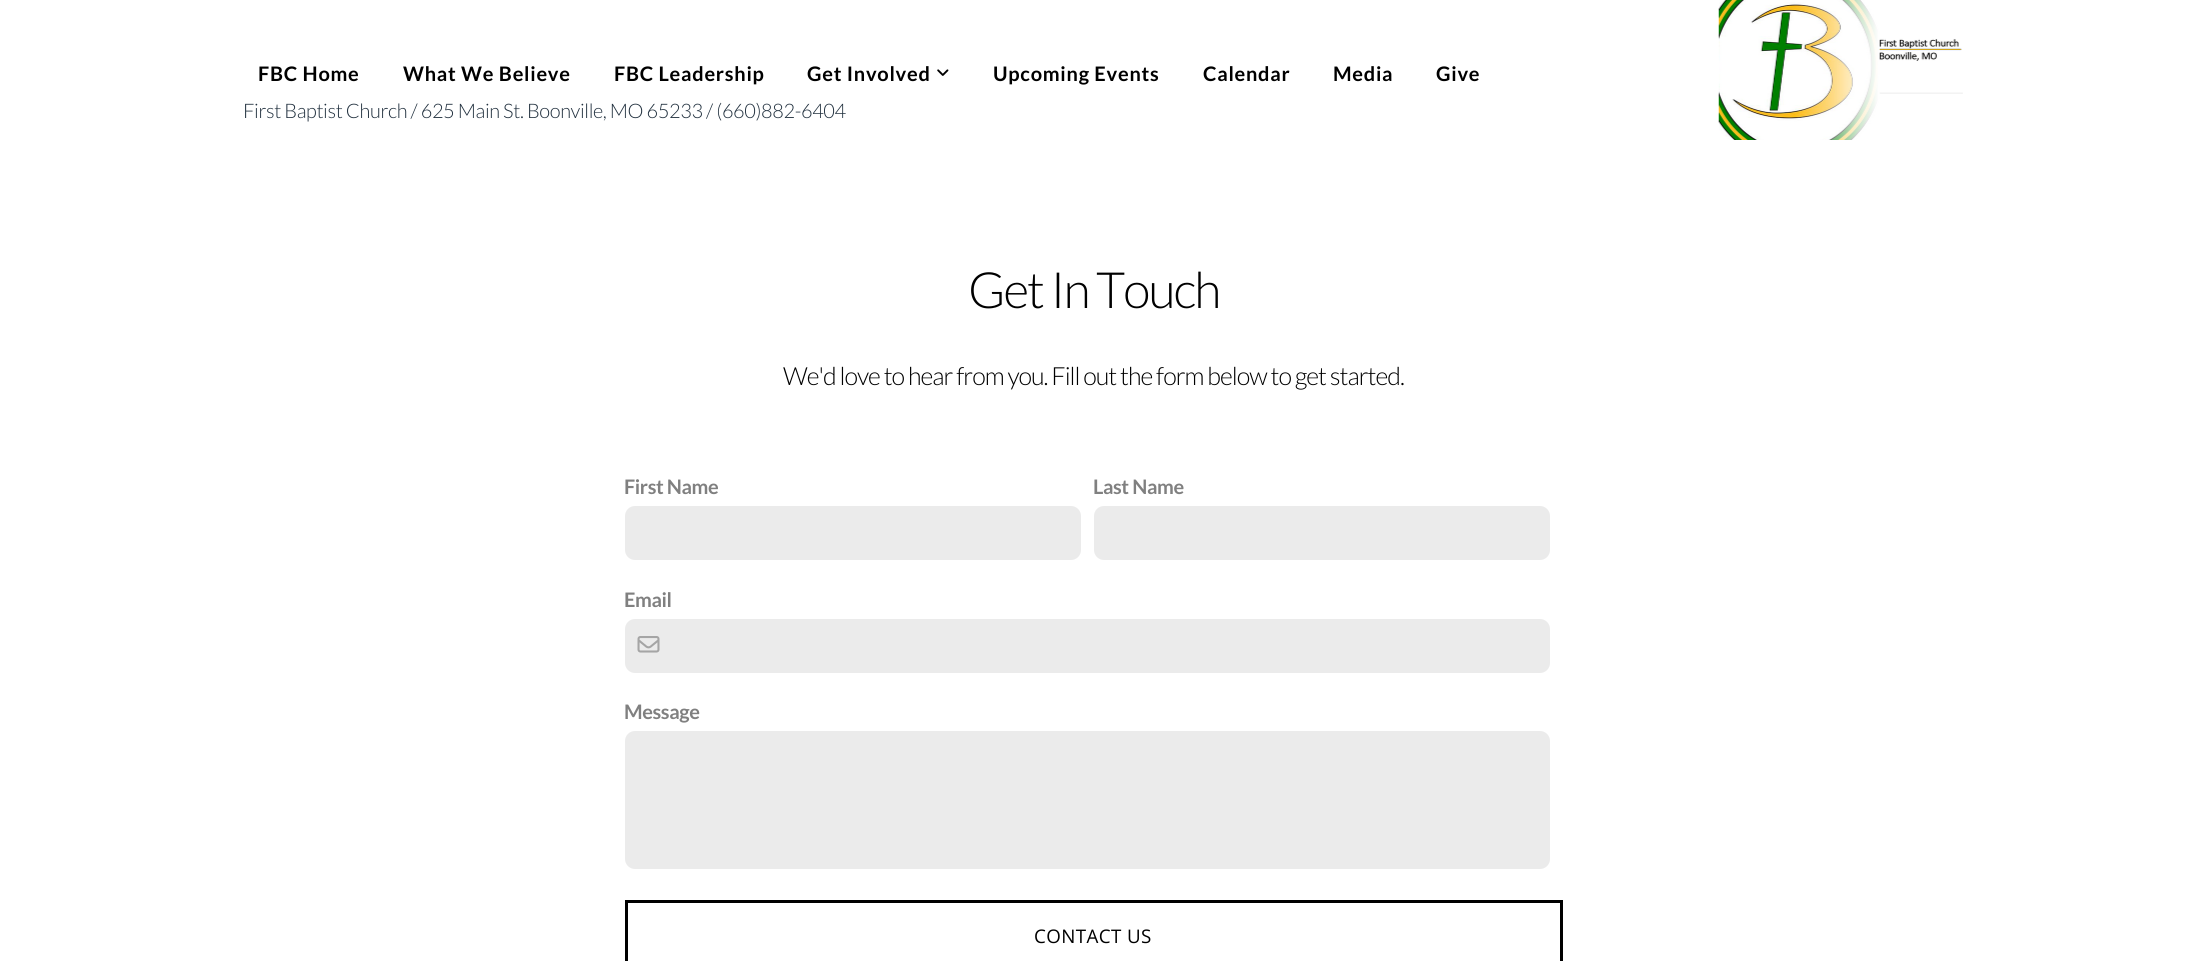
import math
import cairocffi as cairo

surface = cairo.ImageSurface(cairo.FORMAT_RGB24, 2186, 961)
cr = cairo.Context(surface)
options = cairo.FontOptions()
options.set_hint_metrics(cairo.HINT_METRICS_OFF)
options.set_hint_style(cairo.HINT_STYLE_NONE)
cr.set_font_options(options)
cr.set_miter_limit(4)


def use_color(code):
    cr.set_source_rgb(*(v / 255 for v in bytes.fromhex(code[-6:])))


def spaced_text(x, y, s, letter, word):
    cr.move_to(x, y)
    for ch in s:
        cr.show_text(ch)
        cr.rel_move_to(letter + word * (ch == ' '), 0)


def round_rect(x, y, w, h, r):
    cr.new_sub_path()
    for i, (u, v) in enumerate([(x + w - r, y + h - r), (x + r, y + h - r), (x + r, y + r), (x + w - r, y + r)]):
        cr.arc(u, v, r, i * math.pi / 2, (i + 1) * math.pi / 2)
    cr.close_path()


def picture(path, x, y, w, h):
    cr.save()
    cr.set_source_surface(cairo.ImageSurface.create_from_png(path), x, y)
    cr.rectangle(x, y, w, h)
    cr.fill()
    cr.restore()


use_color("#ffffff")
cr.paint()
cr.select_font_face("Lato", cairo.FONT_SLANT_NORMAL, cairo.FONT_WEIGHT_BOLD)
cr.set_font_size(20)
use_color("#000000")
spaced_text(258, 81, "FBC Home", 0.75, 0)
spaced_text(403, 81, "What We Believe", 0.75, 0)
spaced_text(614, 81, "FBC Leadership", 0.75, 0)
spaced_text(807, 81, "Get Involved", 0.75, 0)
picture("img1.png", 937, 69, 12, 7)
spaced_text(993, 81, "Upcoming Events", 0.75, 0)
spaced_text(1203, 81, "Calendar", 0.75, 0)
spaced_text(1333, 81, "Media", 0.75, 0)
spaced_text(1436, 81, "Give", 0.75, 0)
picture("img2.png", 1718, 0, 245, 140)
cr.select_font_face("Lato Light")
use_color("#22313f")
spaced_text(243, 118, "First Baptist Church / 625 Main St. Boonville, MO 65233 / (660)882-6404", -0.4, 0)
cr.set_font_size(50)
use_color("#000000")
spaced_text(968, 308, "Get In Touch", -2, 0)
cr.set_font_size(25)
spaced_text(783, 385, "We'd love to hear from you. Fill out the form below to get started.", -1, 0)
cr.select_font_face("Lato", cairo.FONT_SLANT_NORMAL, cairo.FONT_WEIGHT_BOLD)
cr.set_font_size(20)
use_color("#808080")
spaced_text(624, 494, "First Name", -0.4, 0)
use_color("#ebebeb")
round_rect(625, 506, 456, 54, 10)
cr.fill()
use_color("#808080")
spaced_text(1093, 494, "Last Name", -0.4, 0)
use_color("#ebebeb")
round_rect(1094, 506, 456, 54, 10)
cr.fill()
use_color("#808080")
spaced_text(624, 607, "Email", -0.4, 0)
use_color("#ebebeb")
round_rect(625, 619, 925, 54, 10)
cr.fill()
picture("img3.png", 637, 636, 23, 17)
use_color("#808080")
spaced_text(624, 719, "Message", -0.4, 0)
use_color("#ebebeb")
round_rect(625, 731, 925, 138, 10)
cr.fill()
cr.rectangle(626.5, 901.5, 935, 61)
use_color("#000000")
cr.set_line_width(3)
cr.stroke()
cr.select_font_face("Open Sans")
cr.set_font_size(18.75)
spaced_text(1034, 943, "CONTACT US", 0.4, 0)
surface.write_to_png("result.png")
